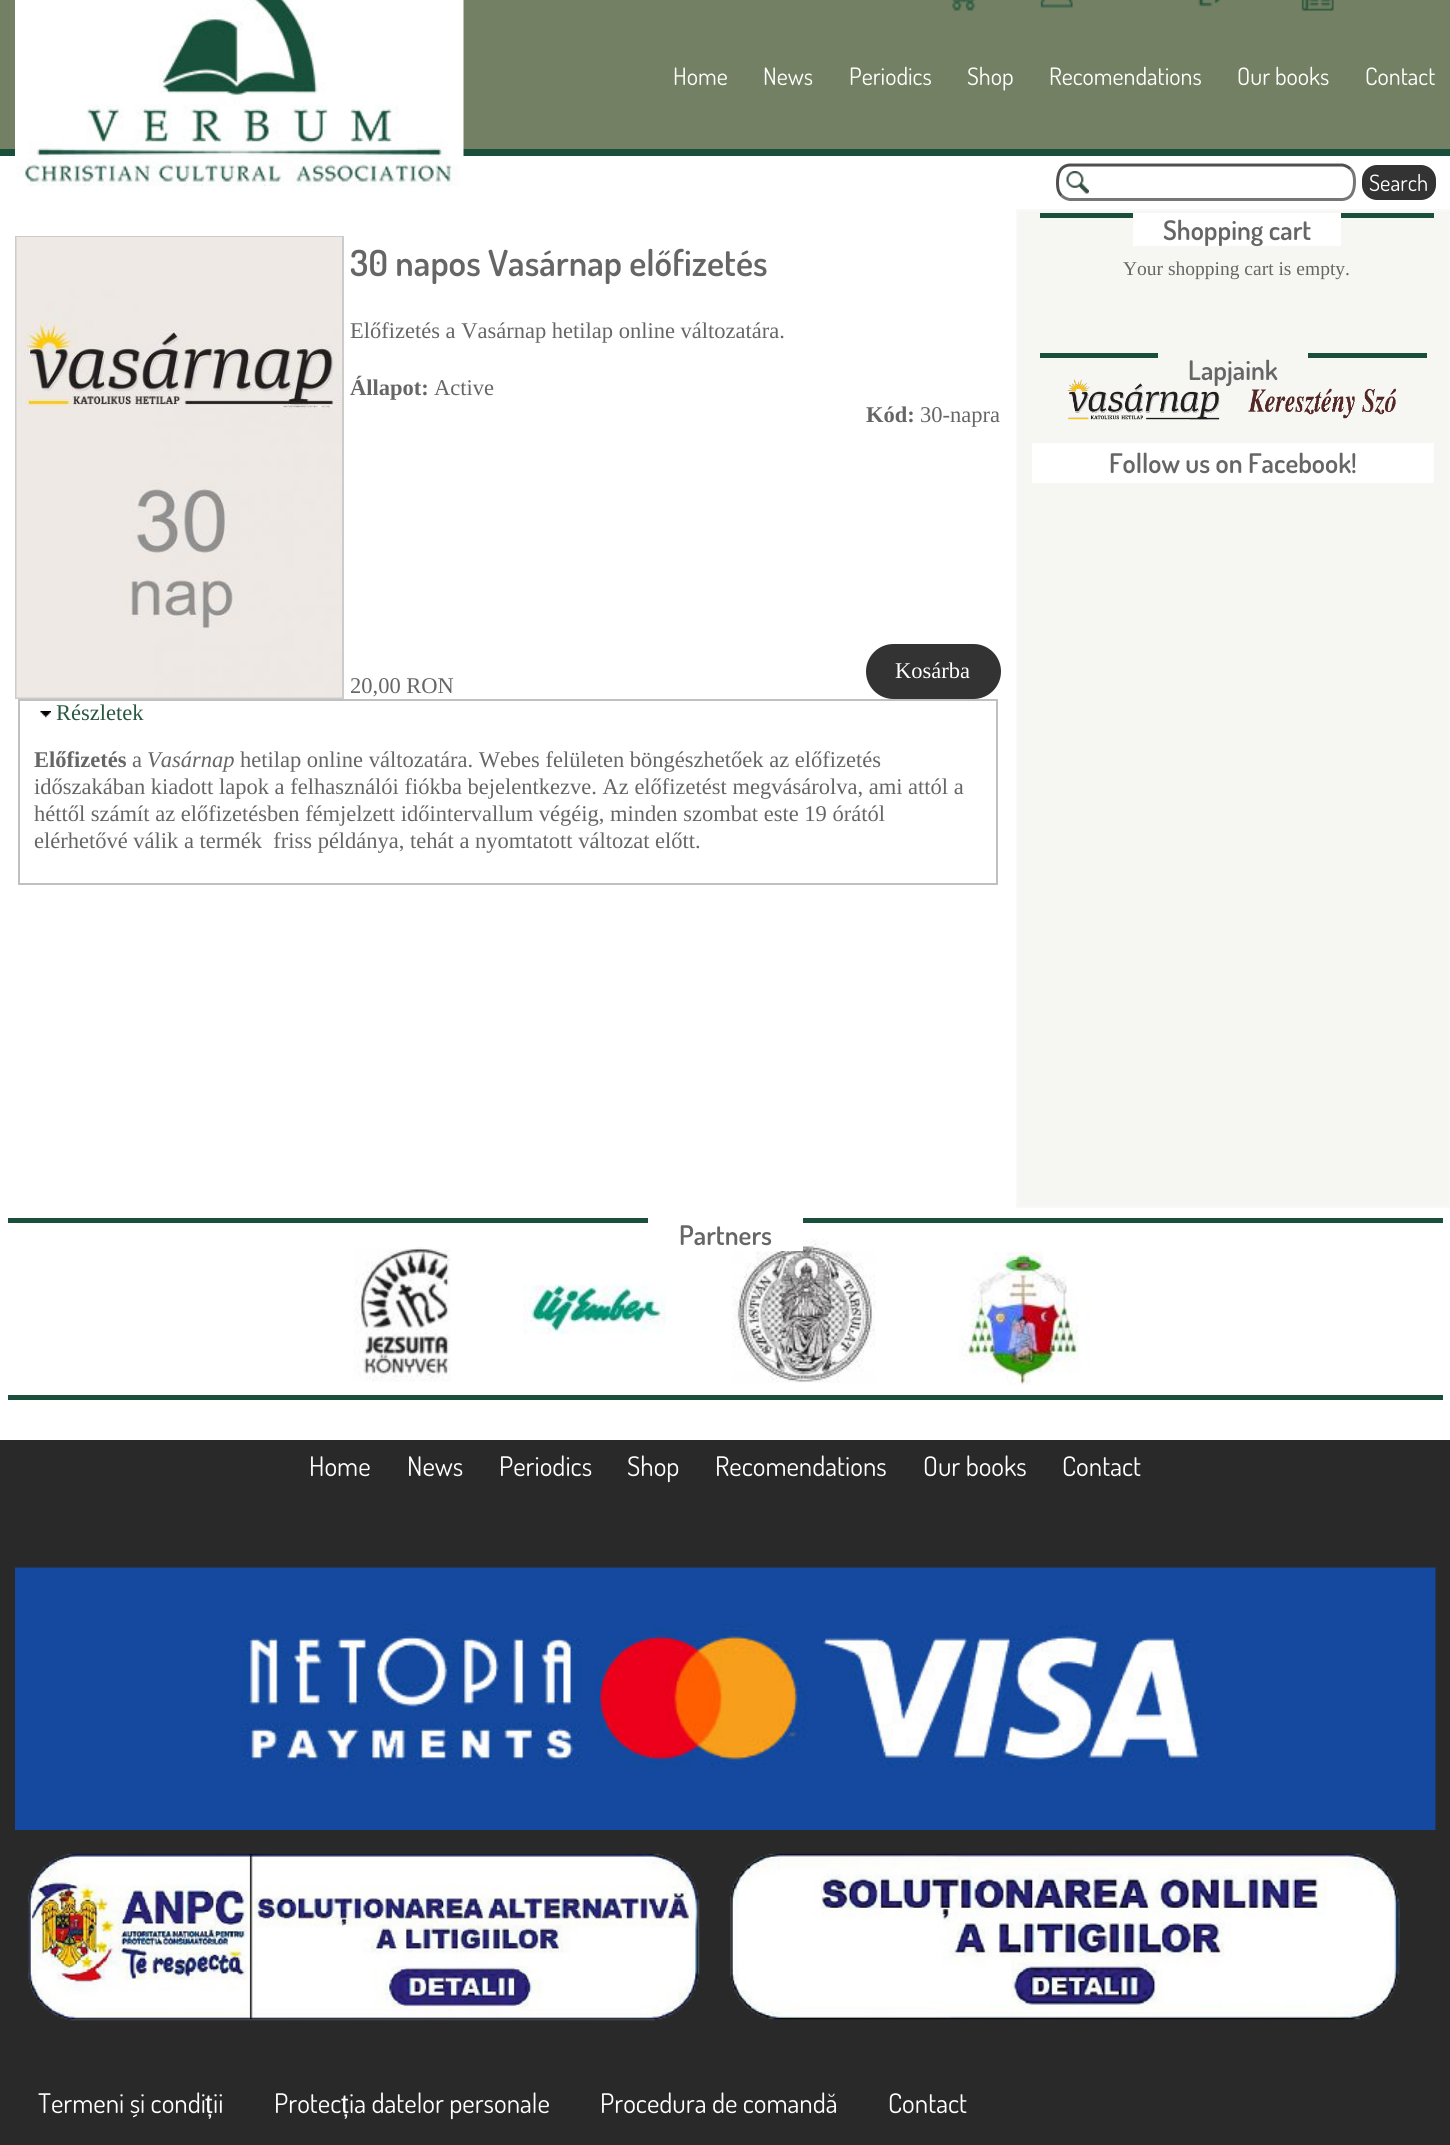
import math
import cairocffi as cairo

surface = cairo.ImageSurface(cairo.FORMAT_RGB24, 1450, 2145)
cr = cairo.Context(surface)
options = cairo.FontOptions()
options.set_hint_metrics(cairo.HINT_METRICS_OFF)
options.set_hint_style(cairo.HINT_STYLE_NONE)
cr.set_font_options(options)
cr.set_miter_limit(4)


def use_color(code):
    cr.set_source_rgb(*(v / 255 for v in bytes.fromhex(code[-6:])))


def round_rect(x, y, w, h, r):
    cr.new_sub_path()
    for i, (u, v) in enumerate([(x + w - r, y + h - r), (x + r, y + h - r), (x + r, y + r), (x + w - r, y + r)]):
        cr.arc(u, v, r, i * math.pi / 2, (i + 1) * math.pi / 2)
    cr.close_path()


def picture(path, x, y, w, h):
    cr.save()
    cr.set_source_surface(cairo.ImageSurface.create_from_png(path), x, y)
    cr.rectangle(x, y, w, h)
    cr.fill()
    cr.restore()


use_color("#ffffff")
cr.paint()
use_color("#738063")
cr.rectangle(0, 0, 1450, 149)
cr.fill()
use_color("#1a4f3b")
cr.rectangle(0, 149, 1450, 7)
cr.fill()
picture("img1.png", 15, 0, 449, 186)
picture("img2.png", 952, 0, 24, 11)
picture("img3.png", 1040, 0, 33, 8)
picture("img4.png", 1198, 0, 22, 7)
picture("img5.png", 1301, 0, 33, 11)
cr.select_font_face("Dosis")
cr.set_font_size(24)
use_color("#ffffff")
cr.move_to(673, 85)
cr.show_text("Home")
cr.move_to(763, 85)
cr.show_text("News")
cr.move_to(849, 85)
cr.show_text("Periodics")
cr.move_to(967, 85)
cr.show_text("Shop")
cr.move_to(1049, 85)
cr.show_text("Recomendations")
cr.move_to(1237, 85)
cr.show_text("Our books")
cr.move_to(1365, 85)
cr.show_text("Contact")
picture("img6.png", 1066, 171, 23, 23)
cr.new_path()
cr.move_to(1350.5, 169)
cr.curve_to(1354, 172.5, 1354.5, 177, 1354.5, 181.5)
cr.curve_to(1354.5, 190, 1352.5, 198.5, 1342.5, 199.5)
cr.line_to(1069.5, 199.5)
cr.curve_to(1066.5, 199, 1063.5, 197.5, 1061.5, 195.5)
use_color("#767676")
cr.set_line_width(3)
cr.stroke()
cr.new_path()
cr.move_to(1061.5, 195.5)
cr.curve_to(1058, 192, 1057.5, 187.5, 1057.5, 183)
cr.curve_to(1057.5, 174.5, 1059.5, 166, 1069.5, 165)
cr.line_to(1342.5, 165)
cr.curve_to(1345.5, 165.5, 1348.5, 167, 1350.5, 169)
use_color("#4f4f4f")
cr.stroke()
use_color("#333333")
round_rect(1362, 165, 74, 35, 15)
cr.fill()
cr.set_font_size(22.5)
use_color("#ffffff")
cr.move_to(1369, 191)
cr.show_text("Search")
cr.rectangle(16, 237, 327, 461)
use_color("#cccccc")
cr.set_line_width(2)
cr.stroke()
picture("img7.png", 16, 237, 326, 461)
cr.select_font_face("Dosis SemiBold")
cr.set_font_size(36)
use_color("#666666")
cr.move_to(350, 276)
cr.show_text("30 napos Vasárnap előfizetés")
cr.select_font_face("Liberation Serif")
cr.set_font_size(22.5)
cr.move_to(350, 338)
cr.show_text("Előfizetés a Vasárnap hetilap online változatára.")
cr.select_font_face("Liberation Serif", cairo.FONT_SLANT_NORMAL, cairo.FONT_WEIGHT_BOLD)
cr.move_to(350, 395)
cr.show_text("Állapot:")
cr.select_font_face("Liberation Serif")
cr.move_to(434, 395)
cr.show_text("Active")
cr.select_font_face("Liberation Serif", cairo.FONT_SLANT_NORMAL, cairo.FONT_WEIGHT_BOLD)
cr.move_to(866, 422)
cr.show_text("Kód:")
cr.select_font_face("Liberation Serif")
cr.move_to(920, 422)
cr.show_text("30-napra")
use_color("#333333")
round_rect(866, 644, 135, 55, 27.5)
cr.fill()
use_color("#ffffff")
cr.move_to(895, 678)
cr.show_text("Kosárba")
use_color("#666666")
cr.move_to(350, 693)
cr.show_text("20,00 RON")
cr.rectangle(19, 700, 978, 184)
use_color("#c0c0c0")
cr.stroke()
picture("img8.png", 40, 711, 11, 7)
use_color("#285742")
cr.move_to(56, 720)
cr.show_text("Részletek")
cr.select_font_face("Liberation Serif", cairo.FONT_SLANT_NORMAL, cairo.FONT_WEIGHT_BOLD)
use_color("#666666")
cr.move_to(34, 767)
cr.show_text("Előfizetés")
cr.select_font_face("Liberation Serif")
cr.move_to(132, 767)
cr.show_text("a")
cr.select_font_face("Liberation Serif", cairo.FONT_SLANT_ITALIC)
cr.move_to(147, 767)
cr.show_text("Vasárnap")
cr.select_font_face("Liberation Serif")
cr.move_to(240, 767)
cr.show_text("hetilap online változatára. Webes felületen böngészhetőek az előfizetés")
cr.move_to(34, 794)
cr.show_text("időszakában kiadott lapok a felhasználói fiókba bejelentkezve. Az előfizetést megvásárolva, ami attól a")
cr.move_to(34, 821)
cr.show_text("héttől számít az előfizetésben fémjelzett időintervallum végéig, minden szombat este 19 órától")
cr.move_to(34, 848)
cr.show_text("elérhetővé válik a termék  friss példánya, tehát a nyomtatott változat előtt.")
use_color("#f6f6f2")
cr.rectangle(1017, 210, 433, 997)
cr.fill_preserve()
use_color("#f9f9f9")
cr.stroke()
use_color("#1a4f3b")
cr.rectangle(1040, 213, 394, 5)
cr.fill()
use_color("#ffffff")
cr.rectangle(1133, 213, 208, 33)
cr.fill()
cr.select_font_face("Dosis SemiBold")
cr.set_font_size(27)
use_color("#666666")
cr.move_to(1163, 240)
cr.show_text("Shopping cart")
cr.select_font_face("Liberation Serif")
cr.set_font_size(19.5)
cr.move_to(1123, 275)
cr.show_text("Your shopping cart is empty.")
use_color("#1a4f3b")
cr.rectangle(1040, 353, 387, 5)
cr.fill()
picture("img9.png", 1067, 379, 153, 41)
picture("img10.png", 1248, 388, 148, 31)
cr.select_font_face("Dosis SemiBold")
cr.set_font_size(27)
use_color("#666666")
cr.move_to(1188, 380)
cr.show_text("Lapjaink")
use_color("#f6f6f2")
cr.rectangle(1158, 353, 150, 5)
cr.fill()
use_color("#ffffff")
cr.rectangle(1032, 443, 402, 40)
cr.fill()
use_color("#666666")
cr.move_to(1109, 473)
cr.show_text("Follow us on Facebook!")
use_color("#1a4f3b")
cr.rectangle(8, 1218, 1435, 5)
cr.fill()
cr.rectangle(8, 1395, 1435, 5)
cr.fill()
picture("img11.png", 354, 1247, 97, 135)
picture("img12.png", 523, 1284, 143, 51)
picture("img13.png", 732, 1239, 144, 144)
picture("img14.png", 959, 1252, 131, 133)
use_color("#ffffff")
cr.rectangle(648, 1218, 155, 33)
cr.fill()
use_color("#666666")
cr.move_to(679, 1245)
cr.show_text("Partners")
use_color("#292929")
cr.rectangle(0, 1440, 1450, 705)
cr.fill()
cr.select_font_face("Dosis")
use_color("#ffffff")
cr.move_to(309, 1476)
cr.show_text("Home")
cr.move_to(407, 1476)
cr.show_text("News")
cr.move_to(499, 1476)
cr.show_text("Periodics")
cr.move_to(627, 1476)
cr.show_text("Shop")
cr.move_to(715, 1476)
cr.show_text("Recomendations")
cr.move_to(923, 1476)
cr.show_text("Our books")
cr.move_to(1062, 1476)
cr.show_text("Contact")
picture("img15.png", 15, 1567, 1421, 263)
picture("img16.png", 28, 1853, 672, 168)
picture("img17.png", 730, 1853, 670, 167)
cr.move_to(38, 2113)
cr.show_text("Termeni și condi")
cr.select_font_face("Liberation Sans")
cr.move_to(205, 2113)
cr.show_text("ț")
cr.select_font_face("Dosis")
cr.move_to(213, 2113)
cr.show_text("ii")
cr.move_to(274, 2113)
cr.show_text("Protec")
cr.select_font_face("Liberation Sans")
cr.move_to(341, 2113)
cr.show_text("ț")
cr.select_font_face("Dosis")
cr.move_to(349, 2113)
cr.show_text("ia datelor personale")
cr.move_to(600, 2113)
cr.show_text("Procedura de comandă")
cr.move_to(888, 2113)
cr.show_text("Contact")
surface.write_to_png("result.png")
